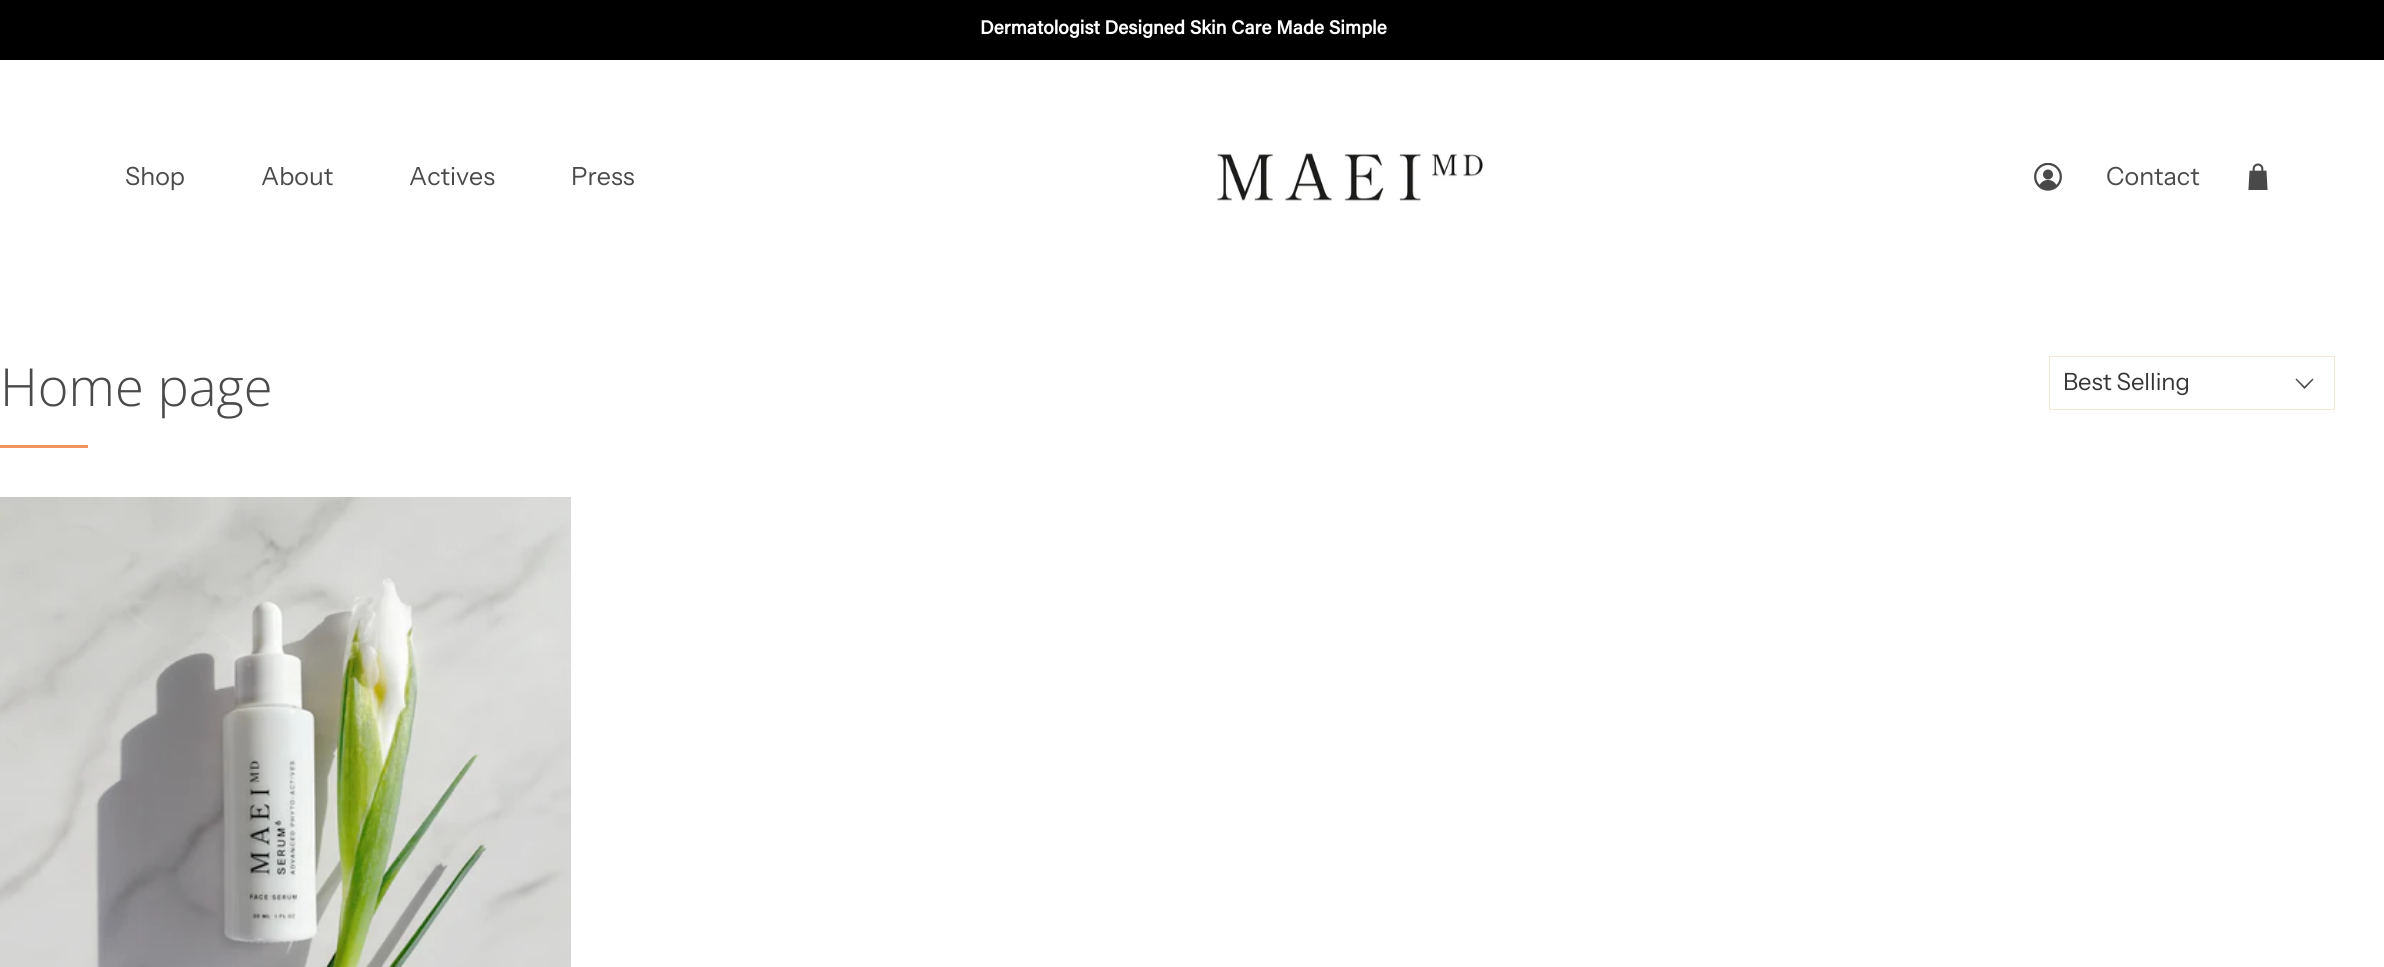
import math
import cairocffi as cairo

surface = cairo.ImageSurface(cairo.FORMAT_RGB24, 2384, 967)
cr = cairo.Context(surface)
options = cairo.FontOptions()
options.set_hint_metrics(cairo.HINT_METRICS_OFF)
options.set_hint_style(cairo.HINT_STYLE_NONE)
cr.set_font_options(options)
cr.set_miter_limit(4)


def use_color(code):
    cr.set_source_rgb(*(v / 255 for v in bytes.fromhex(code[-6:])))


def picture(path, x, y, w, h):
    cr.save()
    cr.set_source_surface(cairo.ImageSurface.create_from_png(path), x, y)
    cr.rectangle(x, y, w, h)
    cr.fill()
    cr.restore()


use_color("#ffffff")
cr.paint()
use_color("#000000")
cr.rectangle(0, 0, 2384, 60)
cr.fill()
cr.select_font_face("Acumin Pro", cairo.FONT_SLANT_NORMAL, cairo.FONT_WEIGHT_BOLD)
cr.set_font_size(19)
use_color("#ffffff")
cr.move_to(980, 34)
cr.show_text("Dermatologist Designed Skin Care Made Simple")
cr.select_font_face("Instrument Sans")
cr.set_font_size(25)
use_color("#4a4a4a")
cr.move_to(125, 185)
cr.show_text("Shop")
cr.move_to(261, 185)
cr.show_text("About")
cr.move_to(409, 185)
cr.show_text("Actives")
cr.move_to(571, 185)
cr.show_text("Press")
picture("img1.png", 1217, 153, 266, 49)
picture("img2.png", 2034, 163, 28, 28)
cr.move_to(2106, 185)
cr.show_text("Contact")
picture("img3.png", 2248, 163, 20, 27)
cr.select_font_face("Open Sans Light")
cr.set_font_size(52.5)
cr.move_to(0, 406)
cr.show_text("Home page")
use_color("#f3945f")
cr.rectangle(0, 445, 88, 3)
cr.fill()
cr.rectangle(2049.5, 356.5, 285, 53)
use_color("#f5e8d3")
cr.set_line_width(1)
cr.stroke()
cr.select_font_face("Instrument Sans")
cr.set_font_size(23.75)
use_color("#363636")
cr.move_to(2063, 390)
cr.show_text("Best Selling")
use_color("#4a4a4a")
cr.new_path()
cr.move_to(2304.5, 389)
cr.line_to(2295.5, 379.5)
cr.line_to(2296.5, 378.5)
cr.line_to(2304.5, 386.5)
cr.line_to(2312.5, 378.5)
cr.line_to(2313.5, 379.5)
cr.close_path()
cr.fill()
picture("img4.png", 0, 497, 571, 470)
surface.write_to_png("result.png")
